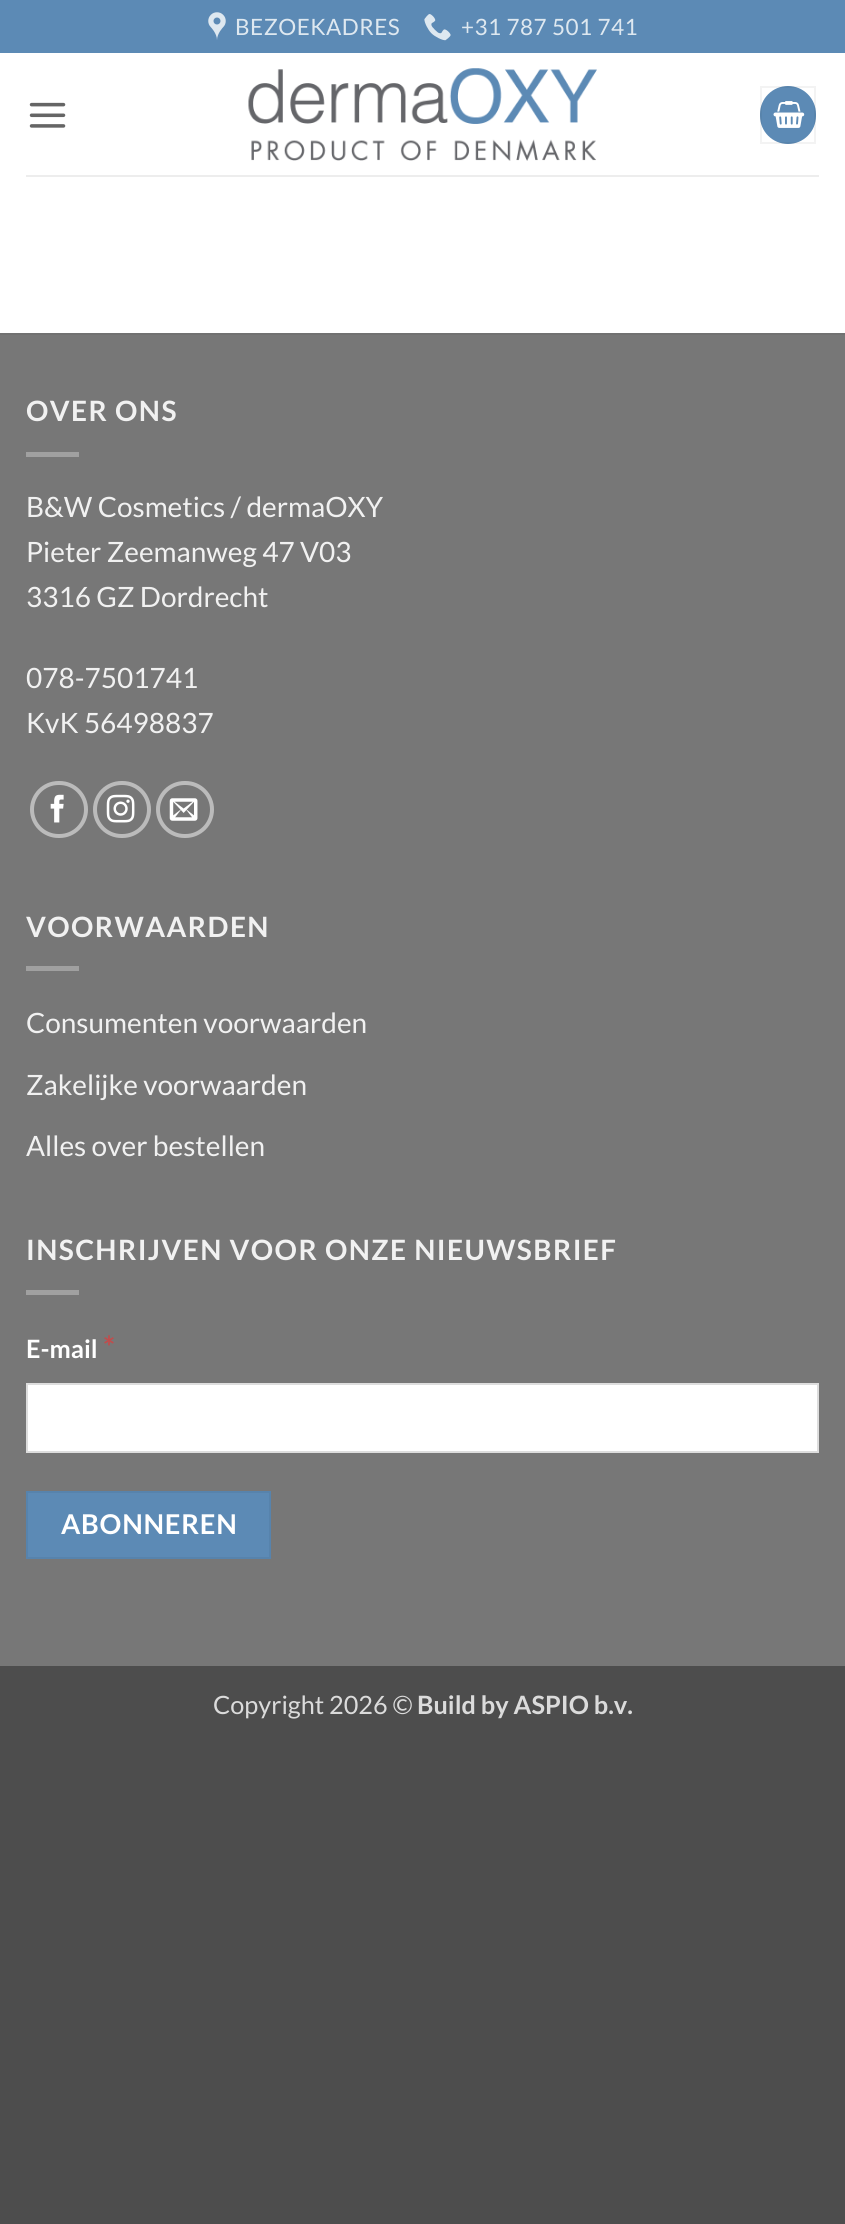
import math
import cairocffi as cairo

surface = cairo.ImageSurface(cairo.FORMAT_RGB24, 845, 2224)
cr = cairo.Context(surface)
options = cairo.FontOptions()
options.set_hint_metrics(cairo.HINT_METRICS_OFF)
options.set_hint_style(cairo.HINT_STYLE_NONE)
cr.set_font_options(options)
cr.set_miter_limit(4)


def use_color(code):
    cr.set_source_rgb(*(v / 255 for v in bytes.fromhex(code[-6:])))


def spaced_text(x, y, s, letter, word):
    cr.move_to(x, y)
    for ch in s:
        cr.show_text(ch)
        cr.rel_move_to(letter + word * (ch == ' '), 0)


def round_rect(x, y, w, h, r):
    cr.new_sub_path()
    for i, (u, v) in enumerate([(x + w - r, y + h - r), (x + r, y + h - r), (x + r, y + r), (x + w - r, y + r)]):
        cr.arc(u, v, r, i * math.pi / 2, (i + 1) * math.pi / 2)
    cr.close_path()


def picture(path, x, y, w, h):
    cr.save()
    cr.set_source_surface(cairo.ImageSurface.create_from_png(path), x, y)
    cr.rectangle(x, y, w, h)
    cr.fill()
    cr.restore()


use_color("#4d4d4d")
cr.paint()
use_color("#ffffff")
cr.rectangle(0, 53, 845, 280)
cr.fill()
use_color("#5c8ab5")
cr.rectangle(0, 0, 845, 53)
cr.fill()
picture("img1.png", 208, 12, 18, 28)
cr.select_font_face("Lato")
cr.set_font_size(22.5)
use_color("#dee8f0")
spaced_text(235, 35, "BEZOEKADRES", 0.5, 0)
picture("img2.png", 424, 14, 27, 27)
spaced_text(461, 35, "+31 787 501 741", 0.5, 0)
picture("img3.png", 29, 102, 37, 26)
picture("img4.png", 248, 68, 349, 93)
use_color("#5c8ab5")
round_rect(760, 86, 56, 58, 28)
cr.fill()
cr.rectangle(761, 87, 54, 56)
cr.set_source_rgba(0, 0, 0, 0.05)
cr.stroke()
picture("img5.png", 773, 101, 32, 27)
use_color("#ededed")
cr.rectangle(26, 175, 793, 2)
cr.fill()
use_color("#777777")
cr.rectangle(0, 335, 845, 1331)
cr.fill()
use_color("#717171")
cr.rectangle(0, 333, 845, 2)
cr.fill()
cr.select_font_face("Lato", cairo.FONT_SLANT_NORMAL, cairo.FONT_WEIGHT_BOLD)
cr.set_font_size(28)
use_color("#f1f1f1")
spaced_text(26, 421, "OVER ONS", 1.4, 0)
use_color("#a0a0a0")
cr.rectangle(26, 452, 53, 5)
cr.fill()
cr.select_font_face("Lato")
use_color("#f1f1f1")
cr.move_to(26, 517)
cr.show_text("B&W Cosmetics / dermaOXY")
cr.move_to(26, 562)
cr.show_text("Pieter Zeemanweg 47 V03")
cr.move_to(26, 607)
cr.show_text("3316 GZ Dordrecht")
cr.move_to(26, 688)
cr.show_text("078-7501741")
cr.move_to(26, 733)
cr.show_text("KvK 56498837")
round_rect(32, 783, 54, 53, 26.5)
use_color("#bbbbbb")
cr.set_line_width(4)
cr.stroke()
picture("img6.png", 50, 794, 14, 29)
round_rect(95, 783, 54, 53, 26.5)
cr.stroke()
picture("img7.png", 106, 794, 29, 29)
round_rect(158, 783, 54, 53, 26.5)
cr.stroke()
picture("img8.png", 169, 798, 29, 23)
cr.select_font_face("Lato", cairo.FONT_SLANT_NORMAL, cairo.FONT_WEIGHT_BOLD)
use_color("#f1f1f1")
spaced_text(26, 937, "VOORWAARDEN", 1.4, 0)
use_color("#a0a0a0")
cr.rectangle(26, 966, 53, 5)
cr.fill()
cr.select_font_face("Lato")
use_color("#f1f1f1")
cr.move_to(26, 1033)
cr.show_text("Consumenten voorwaarden")
cr.move_to(26, 1095)
cr.show_text("Zakelijke voorwaarden")
cr.move_to(26, 1156)
cr.show_text("Alles over bestellen")
cr.select_font_face("Lato", cairo.FONT_SLANT_NORMAL, cairo.FONT_WEIGHT_BOLD)
spaced_text(26, 1260, "INSCHRIJVEN VOOR ONZE NIEUWSBRIEF", 1.4, 0)
use_color("#a0a0a0")
cr.rectangle(26, 1290, 53, 5)
cr.fill()
cr.set_font_size(25.25)
use_color("#ffffff")
cr.move_to(26, 1358)
cr.show_text("E-mail")
cr.set_font_size(30)
use_color("#bf4d4d")
cr.move_to(103, 1358)
cr.show_text("*")
use_color("#ffffff")
cr.rectangle(27, 1384, 791, 68)
cr.fill_preserve()
use_color("#dddddd")
cr.set_line_width(2)
cr.stroke()
use_color("#5c8ab5")
cr.rectangle(27, 1492, 243, 66)
cr.fill_preserve()
use_color("#5783ac")
cr.stroke()
cr.set_font_size(27.25)
use_color("#ffffff")
spaced_text(61, 1534, "ABONNEREN", 0.75, 0)
cr.select_font_face("Lato")
cr.set_font_size(25.25)
use_color("#dbdbdb")
cr.move_to(213, 1714)
cr.show_text("Copyright 2026 ©")
cr.select_font_face("Lato", cairo.FONT_SLANT_NORMAL, cairo.FONT_WEIGHT_BOLD)
cr.move_to(417, 1714)
cr.show_text("Build by ASPIO b.v.")
surface.write_to_png("result.png")
